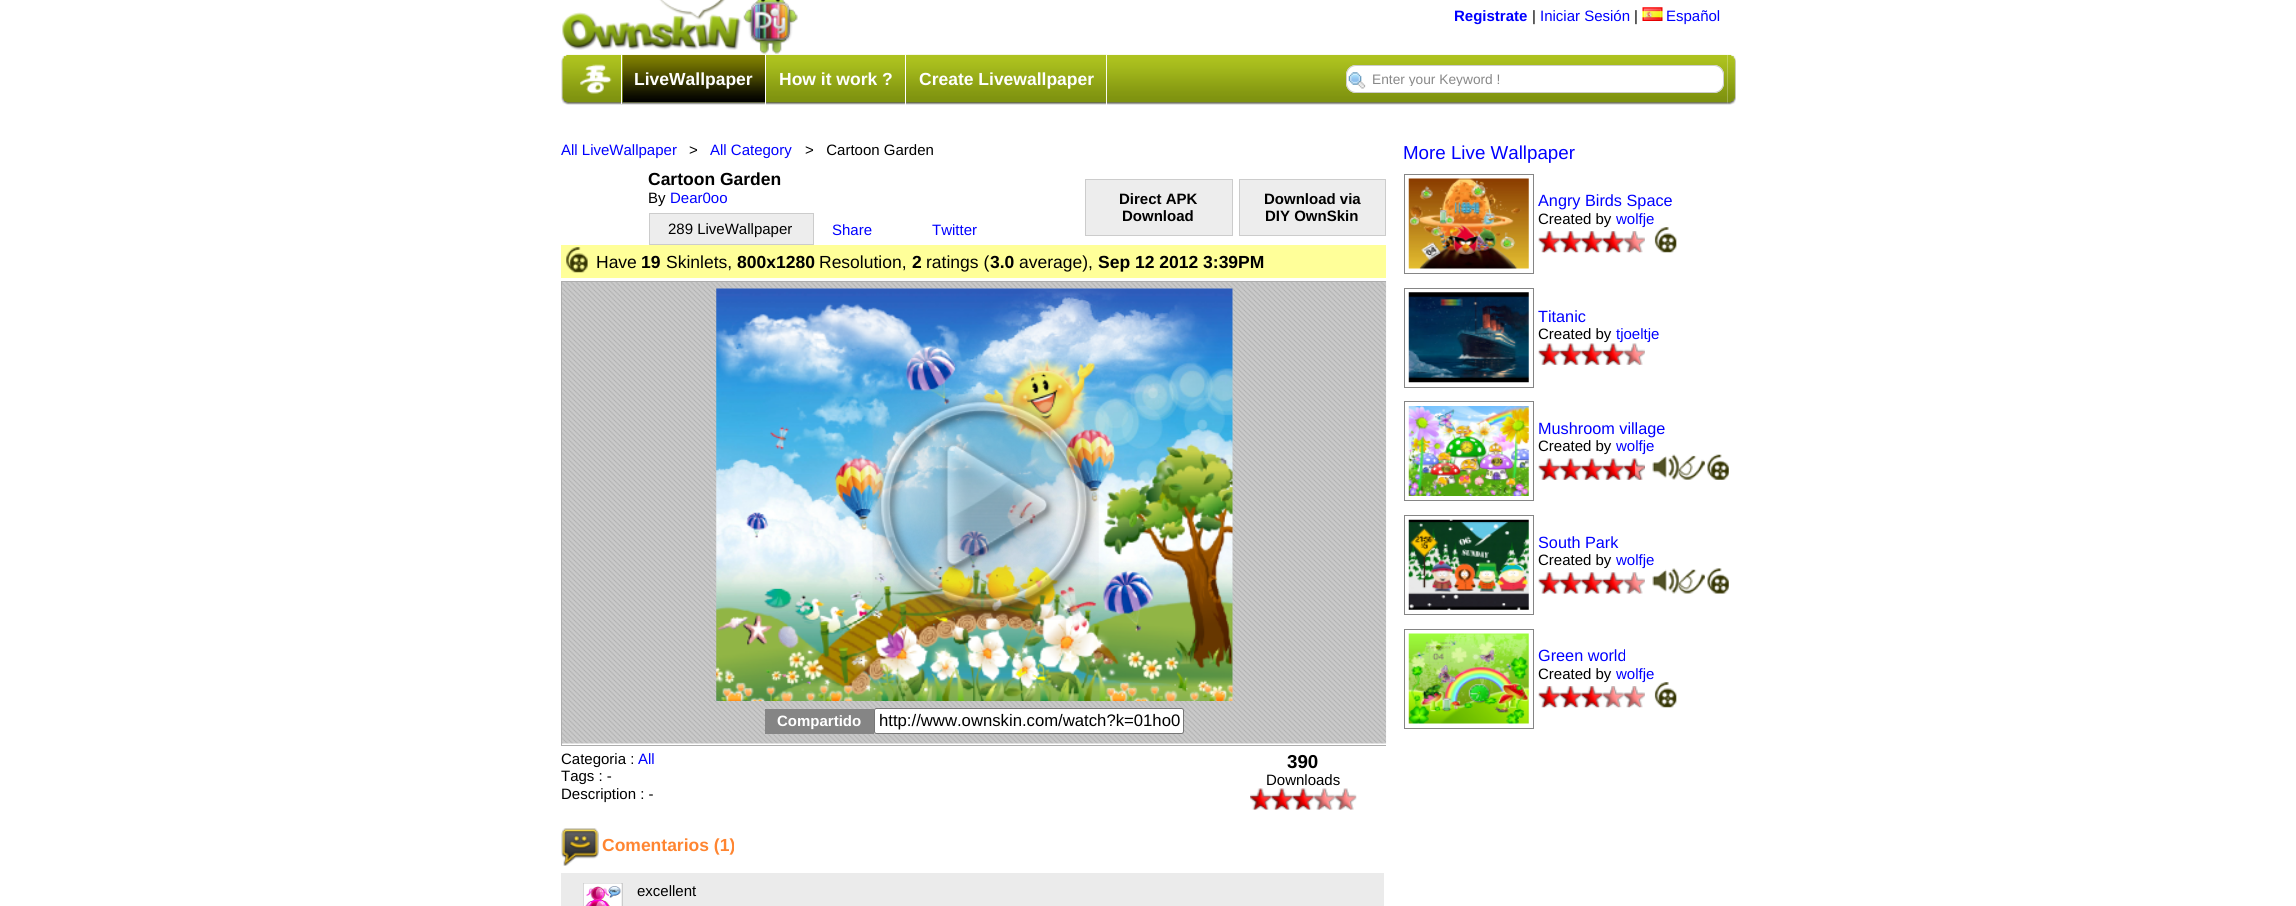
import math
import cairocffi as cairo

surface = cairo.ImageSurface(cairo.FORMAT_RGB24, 2296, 906)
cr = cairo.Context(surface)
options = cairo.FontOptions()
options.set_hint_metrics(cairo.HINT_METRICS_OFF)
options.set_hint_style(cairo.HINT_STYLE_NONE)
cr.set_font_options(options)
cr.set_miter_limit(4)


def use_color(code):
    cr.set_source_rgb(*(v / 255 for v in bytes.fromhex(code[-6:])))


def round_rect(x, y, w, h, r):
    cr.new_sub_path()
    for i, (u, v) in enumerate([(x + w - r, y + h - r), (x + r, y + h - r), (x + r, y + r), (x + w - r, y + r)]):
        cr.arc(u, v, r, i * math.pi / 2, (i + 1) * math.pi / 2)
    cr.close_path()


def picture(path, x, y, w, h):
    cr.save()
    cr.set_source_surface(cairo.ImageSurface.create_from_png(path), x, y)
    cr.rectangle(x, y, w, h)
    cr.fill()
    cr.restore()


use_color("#ffffff")
cr.paint()
picture("img1.png", 562, 0, 236, 54)
cr.select_font_face("Liberation Sans", cairo.FONT_SLANT_NORMAL, cairo.FONT_WEIGHT_BOLD)
cr.set_font_size(15)
use_color("#0000ff")
cr.move_to(1454, 21)
cr.show_text("Registrate")
cr.select_font_face("Liberation Sans")
use_color("#000000")
cr.move_to(1532, 21)
cr.show_text("|")
use_color("#0000ff")
cr.move_to(1540, 21)
cr.show_text("Iniciar Sesión")
use_color("#000000")
cr.move_to(1634, 21)
cr.show_text("|")
picture("img2.png", 1642, 7, 21, 14)
use_color("#0000ff")
cr.move_to(1666, 21)
cr.show_text("Español")
picture("img3.png", 561, 54, 9, 51)
picture("img4.png", 570, 54, 1158, 51)
use_color("#ffffff")
cr.rectangle(621, 55, 1, 49)
cr.fill()
picture("img5.png", 580, 64, 32, 30)
cr.rectangle(765, 55, 1, 50)
cr.fill()
picture("img6.png", 622, 55, 143, 48)
cr.select_font_face("Liberation Sans", cairo.FONT_SLANT_NORMAL, cairo.FONT_WEIGHT_BOLD)
cr.set_font_size(17.5)
cr.move_to(634, 85)
cr.show_text("LiveWallpaper")
cr.rectangle(905, 55, 1, 50)
cr.fill()
picture("img7.png", 766, 102, 139, 1)
cr.move_to(779, 85)
cr.show_text("How it work ?")
cr.rectangle(1106, 55, 1, 50)
cr.fill()
picture("img8.png", 906, 54, 201, 49)
cr.move_to(919, 85)
cr.show_text("Create Livewallpaper")
round_rect(1346, 65, 378, 28, 10)
cr.fill()
picture("img9.png", 1348, 72, 18, 17)
round_rect(1346.5, 65.5, 377, 27, 9.5)
use_color("#cccccc")
cr.set_line_width(1)
cr.stroke()
cr.save()
cr.rectangle(1373, 71, 350, 15)
cr.clip()
cr.select_font_face("Liberation Sans")
cr.set_font_size(13.75)
use_color("#888888")
cr.move_to(1372, 84)
cr.show_text("Enter your Keyword !")
cr.restore()
picture("img10.png", 1727, 54, 9, 51)
cr.select_font_face("Liberation Sans")
cr.set_font_size(15)
use_color("#0000ff")
cr.move_to(561, 155)
cr.show_text("All LiveWallpaper")
use_color("#000000")
cr.move_to(689, 155)
cr.show_text(">")
use_color("#0000ff")
cr.move_to(710, 155)
cr.show_text("All Category")
use_color("#000000")
cr.move_to(805, 155)
cr.show_text(">   Cartoon Garden")
cr.select_font_face("Liberation Sans", cairo.FONT_SLANT_NORMAL, cairo.FONT_WEIGHT_BOLD)
cr.set_font_size(17.5)
cr.move_to(648, 185)
cr.show_text("Cartoon Garden")
cr.select_font_face("Liberation Sans")
cr.set_font_size(15)
cr.move_to(648, 203)
cr.show_text("By")
use_color("#0000ff")
cr.move_to(670, 203)
cr.show_text("Dear0oo")
use_color("#ededed")
cr.rectangle(649.5, 213.5, 164, 31)
cr.fill_preserve()
use_color("#cccccc")
cr.stroke()
use_color("#000000")
cr.move_to(668, 234)
cr.show_text("289 LiveWallpaper")
use_color("#ededed")
cr.rectangle(1085.5, 179.5, 147, 56)
cr.fill_preserve()
use_color("#cccccc")
cr.stroke()
cr.select_font_face("Liberation Sans", cairo.FONT_SLANT_NORMAL, cairo.FONT_WEIGHT_BOLD)
use_color("#000000")
cr.move_to(1119, 204)
cr.show_text("Direct APK")
cr.move_to(1122, 221)
cr.show_text("Download")
use_color("#ededed")
cr.rectangle(1239.5, 179.5, 146, 56)
cr.fill_preserve()
use_color("#cccccc")
cr.stroke()
use_color("#000000")
cr.move_to(1264, 204)
cr.show_text("Download via")
cr.move_to(1265, 221)
cr.show_text("DIY OwnSkin")
cr.select_font_face("Liberation Sans")
use_color("#0000ff")
cr.move_to(832, 235)
cr.show_text("Share")
cr.move_to(932, 235)
cr.show_text("Twitter")
use_color("#ffff99")
cr.rectangle(561, 245, 825, 33)
cr.fill()
picture("img11.png", 566, 247, 22, 26)
cr.set_font_size(17.5)
use_color("#000000")
cr.move_to(596, 268)
cr.show_text("Have")
cr.select_font_face("Liberation Sans", cairo.FONT_SLANT_NORMAL, cairo.FONT_WEIGHT_BOLD)
cr.move_to(641, 268)
cr.show_text("19")
cr.select_font_face("Liberation Sans")
cr.move_to(666, 268)
cr.show_text("Skinlets,")
cr.select_font_face("Liberation Sans", cairo.FONT_SLANT_NORMAL, cairo.FONT_WEIGHT_BOLD)
cr.move_to(737, 268)
cr.show_text("800x1280")
cr.select_font_face("Liberation Sans")
cr.move_to(819, 268)
cr.show_text("Resolution,")
cr.select_font_face("Liberation Sans", cairo.FONT_SLANT_NORMAL, cairo.FONT_WEIGHT_BOLD)
cr.move_to(912, 268)
cr.show_text("2")
cr.select_font_face("Liberation Sans")
cr.move_to(926, 268)
cr.show_text("ratings (")
cr.select_font_face("Liberation Sans", cairo.FONT_SLANT_NORMAL, cairo.FONT_WEIGHT_BOLD)
cr.move_to(990, 268)
cr.show_text("3.0")
cr.select_font_face("Liberation Sans")
cr.move_to(1019, 268)
cr.show_text("average),")
cr.select_font_face("Liberation Sans", cairo.FONT_SLANT_NORMAL, cairo.FONT_WEIGHT_BOLD)
cr.move_to(1098, 268)
cr.show_text("Sep 12 2012 3:39PM")
picture("img12.png", 562, 281, 825, 463)
cr.save()
cr.rectangle(561, 169, 825, 641)
cr.clip()
cr.rectangle(561.5, 281.5, 827, 464)
use_color("#adadad")
cr.stroke()
cr.restore()
picture("img13.png", 716, 288, 517, 413)
picture("img14.png", 872, 393, 227, 227)
use_color("#858585")
cr.rectangle(765, 709, 109, 25)
cr.fill()
cr.set_font_size(15)
use_color("#ffffff")
cr.move_to(777, 726)
cr.show_text("Compartido")
round_rect(874.5, 708.5, 309, 25, 2)
cr.fill_preserve()
use_color("#767676")
cr.stroke()
cr.select_font_face("Liberation Sans")
cr.set_font_size(16.7)
use_color("#000000")
cr.move_to(879, 726)
cr.show_text("http://www.ownskin.com/watch?k=01ho0")
cr.set_font_size(15)
cr.move_to(561, 764)
cr.show_text("Categoria :")
use_color("#0000ff")
cr.move_to(638, 764)
cr.show_text("All")
use_color("#000000")
cr.move_to(561, 781)
cr.show_text("Tags : -")
cr.move_to(561, 799)
cr.show_text("Description : -")
cr.select_font_face("Liberation Sans", cairo.FONT_SLANT_NORMAL, cairo.FONT_WEIGHT_BOLD)
cr.set_font_size(18.75)
cr.move_to(1287, 768)
cr.show_text("390")
cr.select_font_face("Liberation Sans")
cr.set_font_size(15)
cr.move_to(1266, 785)
cr.show_text("Downloads")
picture("img15.png", 1250, 788, 22, 22)
picture("img16.png", 1271, 788, 22, 22)
picture("img17.png", 1292, 788, 22, 22)
picture("img18.png", 1313, 788, 22, 22)
picture("img19.png", 1335, 788, 22, 22)
cr.set_font_size(18.75)
use_color("#0000ff")
cr.move_to(1403, 159)
cr.show_text("More Live Wallpaper")
cr.rectangle(1404.5, 174.5, 129, 99)
use_color("#858585")
cr.stroke()
picture("img20.png", 1408, 178, 121, 91)
cr.set_font_size(16.25)
use_color("#0000ff")
cr.move_to(1538, 206)
cr.show_text("Angry Birds Space")
cr.set_font_size(15)
use_color("#000000")
cr.move_to(1538, 224)
cr.show_text("Created by")
use_color("#0000ff")
cr.move_to(1616, 224)
cr.show_text("wolfje")
picture("img21.png", 1538, 231, 22, 22)
picture("img22.png", 1560, 231, 22, 22)
picture("img23.png", 1581, 231, 22, 22)
picture("img24.png", 1602, 231, 22, 22)
picture("img25.png", 1623, 231, 22, 22)
picture("img26.png", 1654, 227, 23, 26)
cr.rectangle(1404.5, 288.5, 129, 99)
use_color("#858585")
cr.stroke()
picture("img27.png", 1408, 292, 121, 91)
cr.set_font_size(16.25)
use_color("#0000ff")
cr.move_to(1538, 322)
cr.show_text("Titanic")
cr.set_font_size(15)
use_color("#000000")
cr.move_to(1538, 339)
cr.show_text("Created by")
use_color("#0000ff")
cr.move_to(1616, 339)
cr.show_text("tjoeltje")
picture("img28.png", 1538, 343, 22, 22)
picture("img29.png", 1560, 343, 22, 22)
picture("img30.png", 1581, 343, 22, 22)
picture("img31.png", 1602, 343, 22, 22)
picture("img32.png", 1623, 343, 22, 22)
cr.rectangle(1404.5, 401.5, 129, 99)
use_color("#858585")
cr.stroke()
picture("img33.png", 1408, 406, 121, 90)
cr.set_font_size(16.25)
use_color("#0000ff")
cr.move_to(1538, 434)
cr.show_text("Mushroom village")
cr.set_font_size(15)
use_color("#000000")
cr.move_to(1538, 451)
cr.show_text("Created by")
use_color("#0000ff")
cr.move_to(1616, 451)
cr.show_text("wolfje")
picture("img28.png", 1538, 458, 22, 22)
picture("img29.png", 1560, 458, 22, 22)
picture("img30.png", 1581, 458, 22, 22)
picture("img31.png", 1602, 458, 22, 22)
picture("img34.png", 1623, 458, 22, 22)
picture("img35.png", 1652, 454, 27, 26)
picture("img36.png", 1678, 455, 27, 25)
picture("img37.png", 1707, 454, 22, 26)
cr.rectangle(1404.5, 515.5, 129, 99)
use_color("#858585")
cr.stroke()
picture("img38.png", 1408, 519, 121, 91)
cr.set_font_size(16.25)
use_color("#0000ff")
cr.move_to(1538, 548)
cr.show_text("South Park")
cr.set_font_size(15)
use_color("#000000")
cr.move_to(1538, 565)
cr.show_text("Created by")
use_color("#0000ff")
cr.move_to(1616, 565)
cr.show_text("wolfje")
picture("img39.png", 1538, 572, 22, 22)
picture("img40.png", 1560, 572, 22, 22)
picture("img41.png", 1581, 572, 22, 22)
picture("img42.png", 1602, 572, 22, 22)
picture("img43.png", 1623, 572, 22, 22)
picture("img44.png", 1652, 568, 27, 26)
picture("img45.png", 1678, 569, 27, 25)
picture("img46.png", 1707, 568, 22, 26)
cr.rectangle(1404.5, 629.5, 129, 99)
use_color("#858585")
cr.stroke()
picture("img47.png", 1408, 633, 121, 91)
cr.set_font_size(16.25)
use_color("#0000ff")
cr.move_to(1538, 661)
cr.show_text("Green world")
cr.set_font_size(15)
use_color("#000000")
cr.move_to(1538, 679)
cr.show_text("Created by")
use_color("#0000ff")
cr.move_to(1616, 679)
cr.show_text("wolfje")
picture("img21.png", 1538, 686, 22, 22)
picture("img22.png", 1560, 686, 22, 22)
picture("img23.png", 1581, 686, 22, 22)
picture("img48.png", 1602, 686, 22, 22)
picture("img49.png", 1623, 686, 22, 22)
picture("img26.png", 1654, 682, 23, 26)
picture("img50.png", 561, 828, 38, 38)
cr.select_font_face("Liberation Sans", cairo.FONT_SLANT_NORMAL, cairo.FONT_WEIGHT_BOLD)
cr.set_font_size(17.5)
use_color("#ff8531")
cr.move_to(602, 851)
cr.show_text("Comentarios (1)")
use_color("#ebebeb")
cr.rectangle(561, 873, 823, 33)
cr.fill()
cr.rectangle(583.5, 883.5, 39, 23)
use_color("#cccccc")
cr.stroke()
picture("img51.png", 583, 883, 39, 23)
cr.select_font_face("Liberation Sans")
cr.set_font_size(15)
use_color("#000000")
cr.move_to(637, 896)
cr.show_text("excellent")
surface.write_to_png("result.png")
